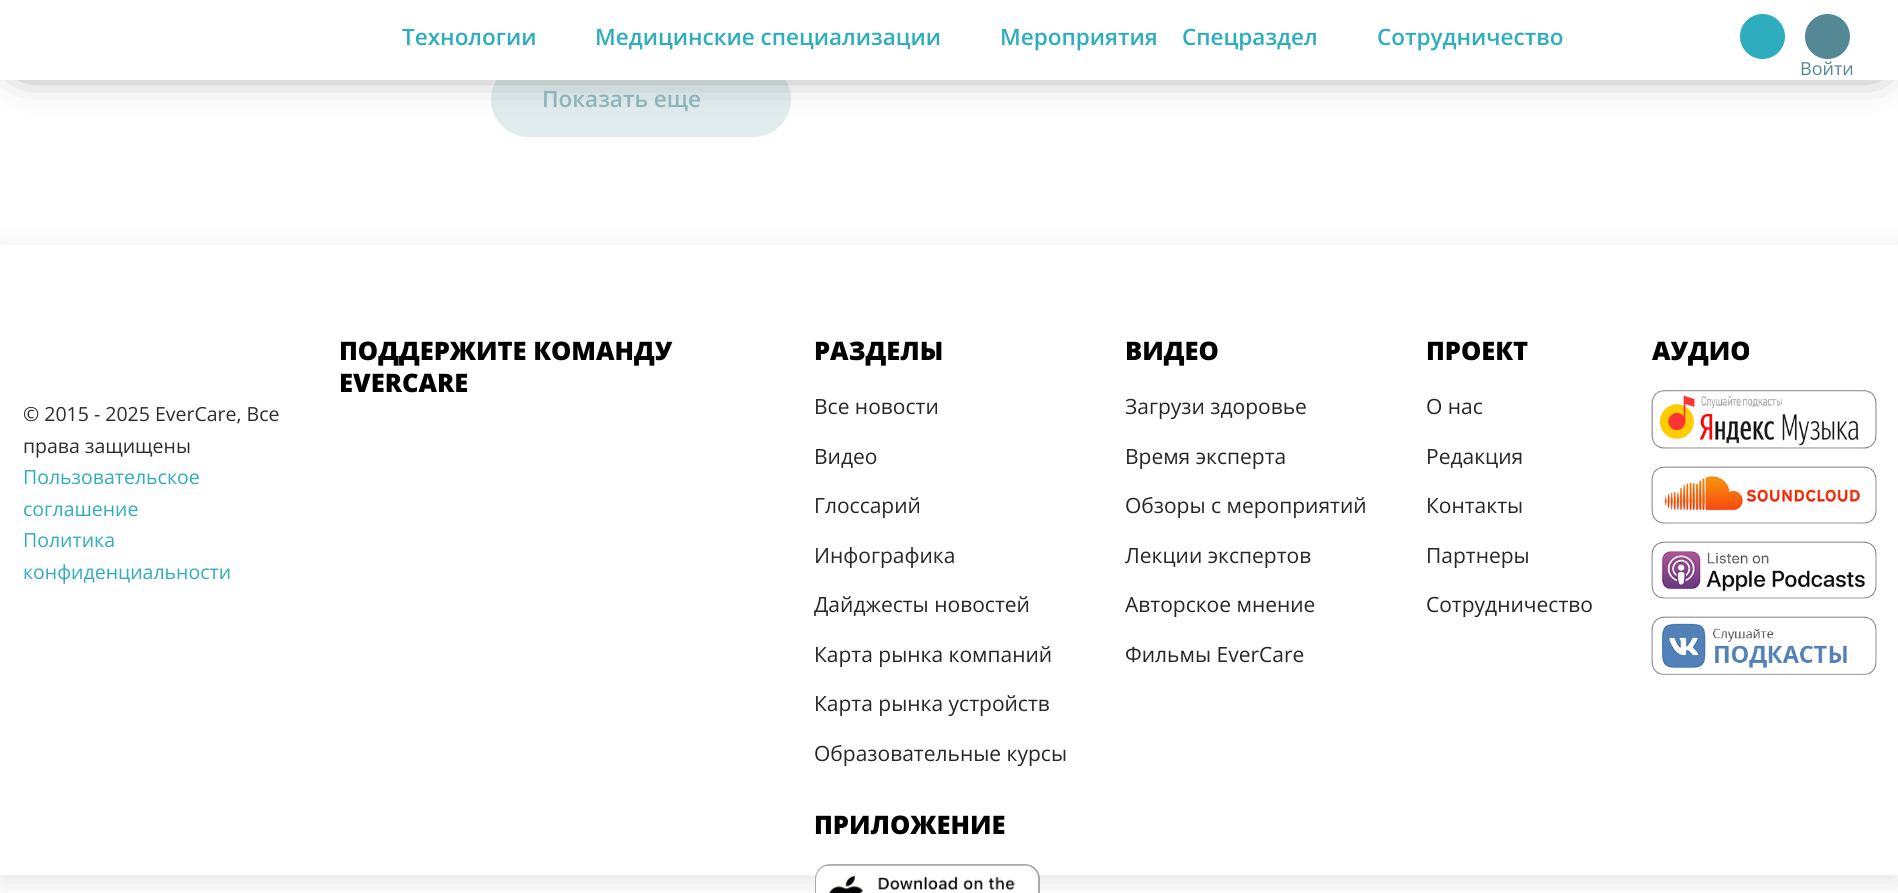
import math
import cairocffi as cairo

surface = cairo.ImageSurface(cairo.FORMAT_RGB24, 1898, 893)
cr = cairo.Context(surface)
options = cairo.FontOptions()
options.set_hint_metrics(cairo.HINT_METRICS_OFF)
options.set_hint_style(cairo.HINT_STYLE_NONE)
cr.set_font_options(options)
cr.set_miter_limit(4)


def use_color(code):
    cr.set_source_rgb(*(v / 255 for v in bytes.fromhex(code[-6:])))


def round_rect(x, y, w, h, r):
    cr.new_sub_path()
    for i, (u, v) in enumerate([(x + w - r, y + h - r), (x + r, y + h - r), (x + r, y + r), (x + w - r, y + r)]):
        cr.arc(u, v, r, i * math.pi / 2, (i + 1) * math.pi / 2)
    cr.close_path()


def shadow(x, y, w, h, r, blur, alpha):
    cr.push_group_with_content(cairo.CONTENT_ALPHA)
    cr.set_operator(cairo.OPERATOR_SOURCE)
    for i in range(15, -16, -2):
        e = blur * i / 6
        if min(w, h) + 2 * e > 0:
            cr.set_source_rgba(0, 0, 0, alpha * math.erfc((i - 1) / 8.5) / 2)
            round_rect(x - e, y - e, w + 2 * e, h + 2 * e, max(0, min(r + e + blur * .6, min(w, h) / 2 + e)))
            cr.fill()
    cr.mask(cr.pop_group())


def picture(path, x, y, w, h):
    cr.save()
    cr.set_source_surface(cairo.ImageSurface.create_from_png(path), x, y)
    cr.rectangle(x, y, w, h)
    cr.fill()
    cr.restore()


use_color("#ffffff")
cr.paint()
use_color("#e0eced")
round_rect(492.5, 63.5, 297, 72, 36)
cr.fill_preserve()
cr.set_line_width(3)
cr.stroke()
use_color("#272727")
shadow(23, 29, 1854, 30, 0, 22.5, 1)
use_color("#ffffff")
cr.rectangle(0, 0, 1898, 80)
cr.fill()
cr.select_font_face("Open Sans SemiBold")
cr.set_font_size(22.5)
use_color("#2dadbe")
cr.move_to(402, 45)
cr.show_text("Технологии")
cr.move_to(595, 45)
cr.show_text("Медицинские специализации")
cr.move_to(1000, 45)
cr.show_text("Мероприятия")
cr.move_to(1182, 45)
cr.show_text("Спецраздел")
cr.move_to(1377, 45)
cr.show_text("Сотрудничество")
cr.new_path()
cr.arc(1762.5, 36.5, 22.5, 0, 2 * math.pi)
cr.fill()
use_color("#538894")
cr.arc(1827.5, 36.5, 22.5, 0, 2 * math.pi)
cr.fill()
cr.select_font_face("Open Sans")
cr.set_font_size(18)
cr.move_to(1800, 75)
cr.show_text("Войти")
cr.select_font_face("Open Sans SemiBold")
cr.set_font_size(22.5)
use_color("#8bb5ba")
cr.move_to(542, 107)
cr.show_text("Показать еще")
use_color("#000000")
shadow(0, 252, 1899, 630, 0, 15, 0.1)
use_color("#ffffff")
cr.rectangle(0, 245, 1898, 630)
cr.fill()
cr.select_font_face("Open Sans")
cr.set_font_size(19.5)
use_color("#2d2d2d")
cr.move_to(23, 421)
cr.show_text("© 2015 - 2025 EverCare, Все")
cr.move_to(23, 453)
cr.show_text("права защищены")
use_color("#2dadbe")
cr.move_to(23, 484)
cr.show_text("Пользовательское")
cr.move_to(23, 516)
cr.show_text("соглашение")
cr.move_to(23, 547)
cr.show_text("Политика")
cr.move_to(23, 579)
cr.show_text("конфиденциальности")
cr.select_font_face("Open Sans ExtraBold")
cr.set_font_size(25.5)
use_color("#000000")
cr.move_to(339, 360)
cr.show_text("ПОДДЕРЖИТЕ КОМАНДУ")
cr.move_to(339, 392)
cr.show_text("EVERCARE")
cr.move_to(814, 360)
cr.show_text("РАЗДЕЛЫ")
cr.select_font_face("Open Sans")
cr.set_font_size(21)
use_color("#272727")
cr.move_to(814, 414)
cr.show_text("Все новости")
cr.move_to(814, 464)
cr.show_text("Видео")
cr.move_to(814, 513)
cr.show_text("Глоссарий")
cr.move_to(814, 563)
cr.show_text("Инфографика")
cr.move_to(814, 612)
cr.show_text("Дайджесты новостей")
cr.move_to(814, 662)
cr.show_text("Карта рынка компаний")
cr.move_to(814, 711)
cr.show_text("Карта рынка устройств")
cr.move_to(814, 761)
cr.show_text("Образовательные курсы")
cr.select_font_face("Open Sans ExtraBold")
cr.set_font_size(25.5)
use_color("#000000")
cr.move_to(814, 834)
cr.show_text("ПРИЛОЖЕНИЕ")
round_rect(816, 865, 223, 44, 14)
use_color("#a9a9a9")
cr.set_line_width(2)
cr.stroke()
picture("img1.png", 816, 865, 222, 28)
use_color("#000000")
cr.move_to(1125, 360)
cr.show_text("ВИДЕО")
cr.select_font_face("Open Sans")
cr.set_font_size(21)
use_color("#272727")
cr.move_to(1125, 414)
cr.show_text("Загрузи здоровье")
cr.move_to(1125, 464)
cr.show_text("Время эксперта")
cr.move_to(1125, 513)
cr.show_text("Обзоры с мероприятий")
cr.move_to(1125, 563)
cr.show_text("Лекции экспертов")
cr.move_to(1125, 612)
cr.show_text("Авторское мнение")
cr.move_to(1125, 662)
cr.show_text("Фильмы EverCare")
cr.select_font_face("Open Sans ExtraBold")
cr.set_font_size(25.5)
use_color("#000000")
cr.move_to(1426, 360)
cr.show_text("ПРОЕКТ")
cr.select_font_face("Open Sans")
cr.set_font_size(21)
use_color("#272727")
cr.move_to(1426, 414)
cr.show_text("О нас")
cr.move_to(1426, 464)
cr.show_text("Редакция")
cr.move_to(1426, 513)
cr.show_text("Контакты")
cr.move_to(1426, 563)
cr.show_text("Партнеры")
cr.move_to(1426, 612)
cr.show_text("Сотрудничество")
cr.select_font_face("Open Sans ExtraBold")
cr.set_font_size(25.5)
use_color("#000000")
cr.move_to(1652, 360)
cr.show_text("АУДИО")
picture("img2.png", 1651, 390, 226, 59)
picture("img3.png", 1651, 466, 226, 58)
picture("img4.png", 1651, 541, 226, 58)
picture("img5.png", 1651, 616, 226, 59)
surface.write_to_png("result.png")
